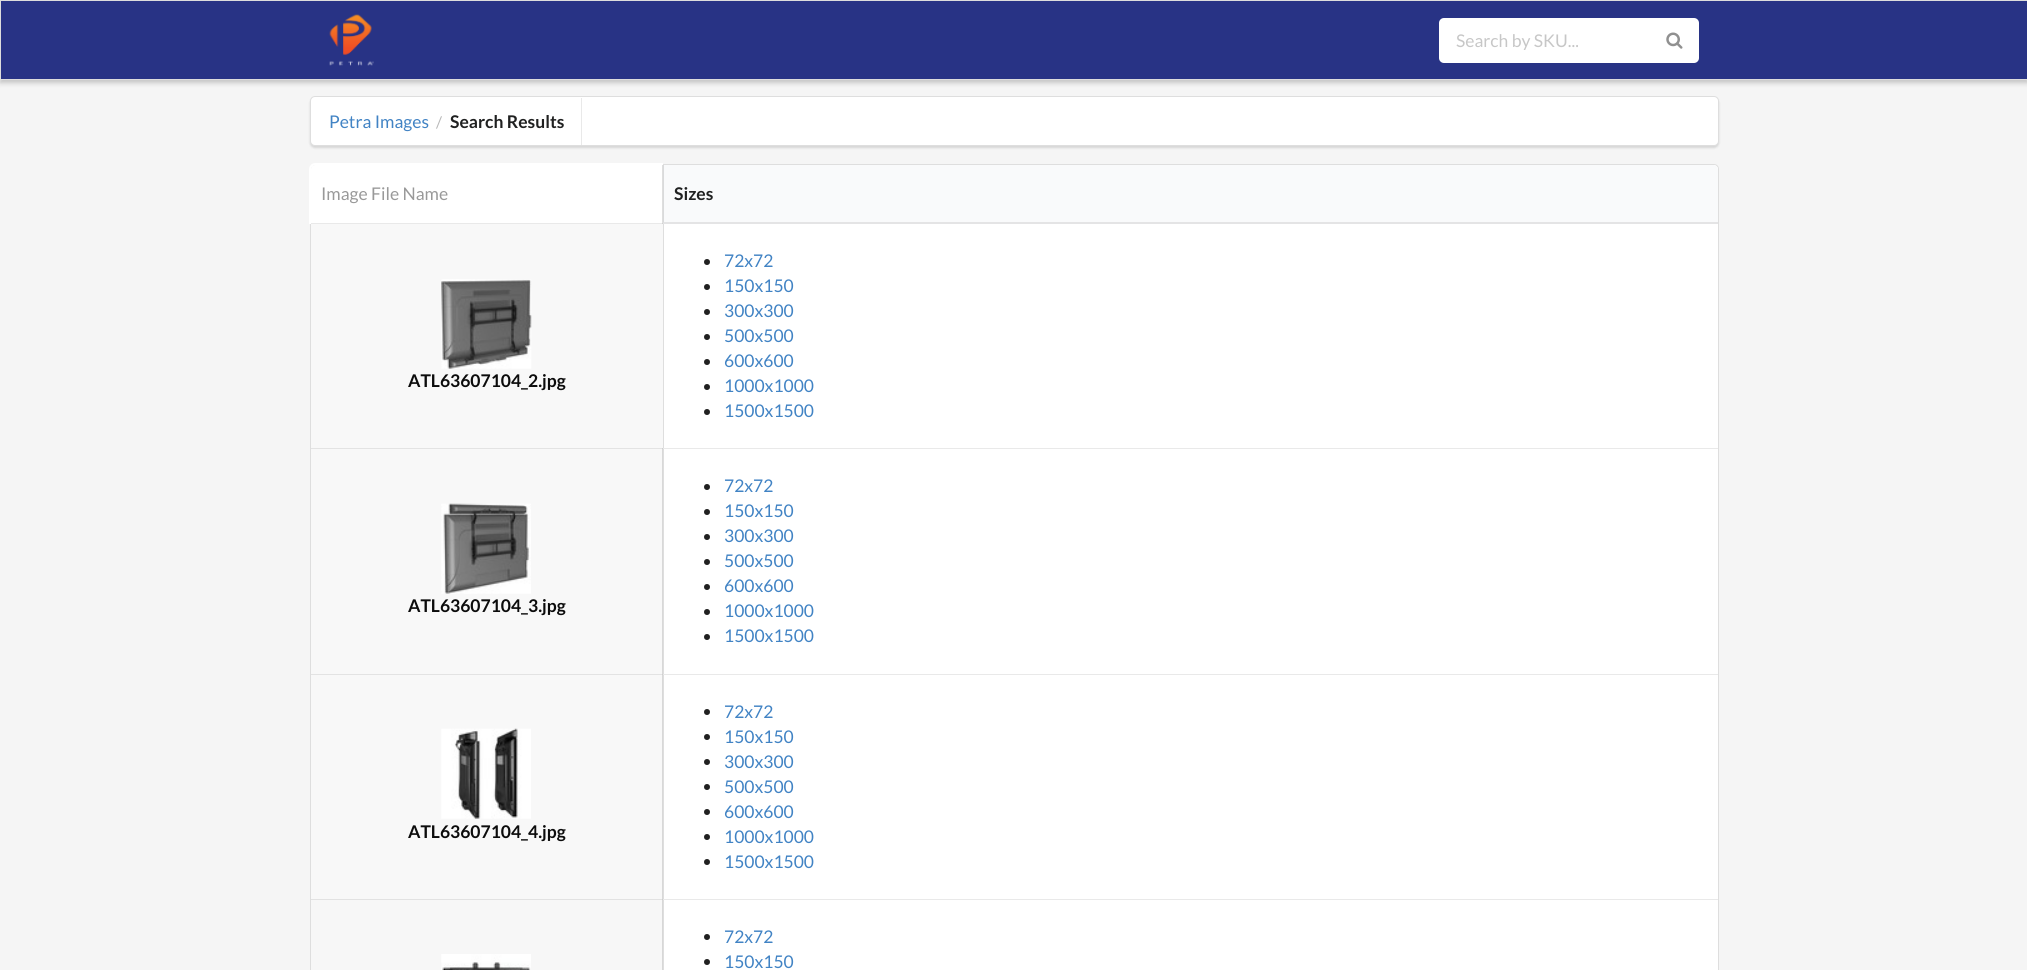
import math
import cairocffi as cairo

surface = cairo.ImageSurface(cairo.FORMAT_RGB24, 2027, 970)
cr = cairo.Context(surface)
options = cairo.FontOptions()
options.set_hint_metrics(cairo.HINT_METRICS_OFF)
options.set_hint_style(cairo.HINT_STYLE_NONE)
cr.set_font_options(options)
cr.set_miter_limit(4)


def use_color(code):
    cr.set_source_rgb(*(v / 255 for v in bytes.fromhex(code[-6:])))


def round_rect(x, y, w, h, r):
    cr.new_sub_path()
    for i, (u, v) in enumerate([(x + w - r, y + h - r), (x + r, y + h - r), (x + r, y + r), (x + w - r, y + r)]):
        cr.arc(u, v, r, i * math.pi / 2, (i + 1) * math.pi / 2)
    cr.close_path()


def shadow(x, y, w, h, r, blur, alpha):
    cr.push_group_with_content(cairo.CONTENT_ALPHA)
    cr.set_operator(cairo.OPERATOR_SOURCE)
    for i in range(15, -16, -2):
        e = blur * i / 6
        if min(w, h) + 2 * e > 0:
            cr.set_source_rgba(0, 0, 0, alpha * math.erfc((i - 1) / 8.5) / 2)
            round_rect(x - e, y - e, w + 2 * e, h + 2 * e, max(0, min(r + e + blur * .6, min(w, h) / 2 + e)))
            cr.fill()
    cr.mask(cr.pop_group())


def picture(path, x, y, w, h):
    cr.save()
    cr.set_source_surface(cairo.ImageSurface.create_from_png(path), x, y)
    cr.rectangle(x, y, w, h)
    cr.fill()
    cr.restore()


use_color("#f5f5f5")
cr.paint()
use_color("#000000")
shadow(0, 3, 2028, 80, 0, 2.5, 0.2)
use_color("#283385")
cr.rectangle(0.5, 0.5, 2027, 79)
cr.fill_preserve()
use_color("#dddddd")
cr.set_line_width(1)
cr.stroke()
picture("img1.png", 329, 14, 45, 52)
use_color("#ffffff")
round_rect(1439, 18, 260, 45, 5)
cr.fill()
cr.select_font_face("Lato")
cr.set_font_size(17.5)
use_color("#c7c7c7")
cr.move_to(1456, 47)
cr.show_text("Search by SKU...")
picture("img2.png", 1666, 32, 17, 17)
use_color("#222426")
shadow(310, 98, 1409, 50, 5, 1, 0.15)
use_color("#ffffff")
round_rect(310, 96, 1409, 50, 5)
cr.fill()
round_rect(310.5, 96.5, 1408, 49, 4.5)
cr.set_source_rgba(0.133, 0.141, 0.149, 0.15)
cr.stroke()
use_color("#4183c4")
cr.move_to(329, 128)
cr.show_text("Petra Images")
cr.set_font_size(16)
use_color("#b8b8b8")
cr.move_to(436, 128)
cr.show_text("/")
cr.select_font_face("Lato", cairo.FONT_SLANT_NORMAL, cairo.FONT_WEIGHT_BOLD)
cr.set_font_size(17.5)
use_color("#202121")
cr.move_to(450, 128)
cr.show_text("Search Results")
use_color("#e9e9e9")
cr.rectangle(581, 98, 1, 47)
cr.fill()
use_color("#ffffff")
round_rect(310, 164, 1409, 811, 5)
cr.fill()
round_rect(310.5, 164.5, 1408, 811, 4.5)
cr.set_source_rgba(0.133, 0.141, 0.149, 0.15)
cr.stroke()
use_color("#ffffff")
cr.set_fill_rule(cairo.FILL_RULE_EVEN_ODD)
cr.new_path()
cr.move_to(315, 163)
cr.curve_to(312, 163, 309, 166, 309, 169)
cr.line_to(309, 224)
cr.line_to(663, 224)
cr.line_to(663, 163)
cr.close_path()
cr.move_to(316, 165)
cr.curve_to(313, 165, 311, 167, 311, 170)
cr.line_to(311, 224)
cr.line_to(662, 224)
cr.line_to(662, 165)
cr.close_path()
cr.fill()
use_color("#e9e9e9")
cr.rectangle(311, 223, 352, 1)
cr.fill()
cr.select_font_face("Lato")
use_color("#999999")
cr.move_to(321, 200)
cr.show_text("Image File Name")
use_color("#f9fafb")
cr.new_path()
cr.move_to(663, 165)
cr.line_to(1713, 165)
cr.curve_to(1716, 165, 1718, 167, 1718, 170)
cr.line_to(1718, 224)
cr.line_to(663, 224)
cr.close_path()
cr.fill()
cr.set_source_rgba(0.133, 0.141, 0.149, 0.1)
cr.set_fill_rule(cairo.FILL_RULE_WINDING)
cr.new_path()
cr.move_to(1718, 224)
cr.line_to(662, 224)
cr.line_to(664, 222)
cr.line_to(1718, 222)
cr.close_path()
cr.fill()
cr.set_source_rgba(0.133, 0.141, 0.149, 0.15)
cr.new_path()
cr.move_to(662, 224)
cr.line_to(664, 222)
cr.line_to(664, 165)
cr.line_to(662, 165)
cr.close_path()
cr.fill()
cr.select_font_face("Lato", cairo.FONT_SLANT_NORMAL, cairo.FONT_WEIGHT_BOLD)
use_color("#202121")
cr.move_to(674, 200)
cr.show_text("Sizes")
use_color("#f8f8f8")
cr.rectangle(311, 224, 352, 224)
cr.fill()
picture("img3.png", 441, 279, 91, 90)
use_color("#0c0c0c")
cr.move_to(408, 387)
cr.show_text("ATL63607104_2.jpg")
use_color("#dedede")
cr.rectangle(663, 224, 1, 224)
cr.fill()
use_color("#212121")
cr.arc(707, 262, 3, 0, 2 * math.pi)
cr.fill()
cr.select_font_face("Lato")
use_color("#4183c4")
cr.move_to(724, 267)
cr.show_text("72x72")
use_color("#212121")
cr.new_path()
cr.arc(707, 287, 3, 0, 2 * math.pi)
cr.fill()
use_color("#4183c4")
cr.move_to(724, 292)
cr.show_text("150x150")
use_color("#212121")
cr.new_path()
cr.arc(707, 312, 3, 0, 2 * math.pi)
cr.fill()
use_color("#4183c4")
cr.move_to(724, 317)
cr.show_text("300x300")
use_color("#212121")
cr.new_path()
cr.arc(707, 337, 3, 0, 2 * math.pi)
cr.fill()
use_color("#4183c4")
cr.move_to(724, 342)
cr.show_text("500x500")
use_color("#212121")
cr.new_path()
cr.arc(707, 362, 3, 0, 2 * math.pi)
cr.fill()
use_color("#4183c4")
cr.move_to(724, 367)
cr.show_text("600x600")
use_color("#212121")
cr.new_path()
cr.arc(707, 387, 3, 0, 2 * math.pi)
cr.fill()
use_color("#4183c4")
cr.move_to(724, 392)
cr.show_text("1000x1000")
use_color("#212121")
cr.new_path()
cr.arc(707, 412, 3, 0, 2 * math.pi)
cr.fill()
use_color("#4183c4")
cr.move_to(724, 417)
cr.show_text("1500x1500")
use_color("#f8f8f8")
cr.rectangle(311, 449, 352, 225)
cr.fill()
use_color("#e3e3e3")
cr.rectangle(311, 448, 352, 1)
cr.fill()
picture("img4.png", 441, 503, 90, 91)
cr.select_font_face("Lato", cairo.FONT_SLANT_NORMAL, cairo.FONT_WEIGHT_BOLD)
use_color("#0c0c0c")
cr.move_to(408, 612)
cr.show_text("ATL63607104_3.jpg")
use_color("#e9e9e9")
cr.new_path()
cr.move_to(662, 448)
cr.line_to(1718, 448)
cr.line_to(1718, 449)
cr.line_to(664, 449)
cr.close_path()
cr.fill()
cr.set_source_rgba(0.133, 0.141, 0.149, 0.15)
cr.new_path()
cr.move_to(662, 674)
cr.line_to(662, 448)
cr.line_to(664, 449)
cr.line_to(664, 674)
cr.close_path()
cr.fill()
use_color("#212121")
cr.arc(707, 487, 3, 0, 2 * math.pi)
cr.fill()
cr.select_font_face("Lato")
use_color("#4183c4")
cr.move_to(724, 492)
cr.show_text("72x72")
use_color("#212121")
cr.new_path()
cr.arc(707, 512, 3, 0, 2 * math.pi)
cr.fill()
use_color("#4183c4")
cr.move_to(724, 517)
cr.show_text("150x150")
use_color("#212121")
cr.new_path()
cr.arc(707, 537, 3, 0, 2 * math.pi)
cr.fill()
use_color("#4183c4")
cr.move_to(724, 542)
cr.show_text("300x300")
use_color("#212121")
cr.new_path()
cr.arc(707, 562, 3, 0, 2 * math.pi)
cr.fill()
use_color("#4183c4")
cr.move_to(724, 567)
cr.show_text("500x500")
use_color("#212121")
cr.new_path()
cr.arc(707, 587, 3, 0, 2 * math.pi)
cr.fill()
use_color("#4183c4")
cr.move_to(724, 592)
cr.show_text("600x600")
use_color("#212121")
cr.new_path()
cr.arc(707, 612, 3, 0, 2 * math.pi)
cr.fill()
use_color("#4183c4")
cr.move_to(724, 617)
cr.show_text("1000x1000")
use_color("#212121")
cr.new_path()
cr.arc(707, 637, 3, 0, 2 * math.pi)
cr.fill()
use_color("#4183c4")
cr.move_to(724, 642)
cr.show_text("1500x1500")
use_color("#f8f8f8")
cr.rectangle(311, 675, 352, 224)
cr.fill()
use_color("#e3e3e3")
cr.rectangle(311, 674, 352, 1)
cr.fill()
picture("img5.png", 441, 728, 90, 91)
cr.select_font_face("Lato", cairo.FONT_SLANT_NORMAL, cairo.FONT_WEIGHT_BOLD)
use_color("#0c0c0c")
cr.move_to(408, 838)
cr.show_text("ATL63607104_4.jpg")
use_color("#e9e9e9")
cr.new_path()
cr.move_to(662, 674)
cr.line_to(1718, 674)
cr.line_to(1718, 675)
cr.line_to(664, 675)
cr.close_path()
cr.fill()
cr.set_source_rgba(0.133, 0.141, 0.149, 0.15)
cr.new_path()
cr.move_to(662, 899)
cr.line_to(662, 674)
cr.line_to(664, 675)
cr.line_to(664, 899)
cr.close_path()
cr.fill()
use_color("#212121")
cr.arc(707, 712, 3, 0, 2 * math.pi)
cr.fill()
cr.select_font_face("Lato")
use_color("#4183c4")
cr.move_to(724, 718)
cr.show_text("72x72")
use_color("#212121")
cr.new_path()
cr.arc(707, 737, 3, 0, 2 * math.pi)
cr.fill()
use_color("#4183c4")
cr.move_to(724, 743)
cr.show_text("150x150")
use_color("#212121")
cr.new_path()
cr.arc(707, 762, 3, 0, 2 * math.pi)
cr.fill()
use_color("#4183c4")
cr.move_to(724, 768)
cr.show_text("300x300")
use_color("#212121")
cr.new_path()
cr.arc(707, 787, 3, 0, 2 * math.pi)
cr.fill()
use_color("#4183c4")
cr.move_to(724, 793)
cr.show_text("500x500")
use_color("#212121")
cr.new_path()
cr.arc(707, 812, 3, 0, 2 * math.pi)
cr.fill()
use_color("#4183c4")
cr.move_to(724, 818)
cr.show_text("600x600")
use_color("#212121")
cr.new_path()
cr.arc(707, 837, 3, 0, 2 * math.pi)
cr.fill()
use_color("#4183c4")
cr.move_to(724, 843)
cr.show_text("1000x1000")
use_color("#212121")
cr.new_path()
cr.arc(707, 862, 3, 0, 2 * math.pi)
cr.fill()
use_color("#4183c4")
cr.move_to(724, 868)
cr.show_text("1500x1500")
use_color("#f7f7f7")
cr.rectangle(311, 900, 352, 70)
cr.fill()
use_color("#e2e2e2")
cr.rectangle(311, 899, 352, 1)
cr.fill()
picture("img6.png", 441, 954, 90, 16)
use_color("#e9e9e9")
cr.new_path()
cr.move_to(662, 899)
cr.line_to(1718, 899)
cr.line_to(1718, 900)
cr.line_to(664, 900)
cr.close_path()
cr.fill()
cr.set_source_rgba(0.133, 0.141, 0.149, 0.15)
cr.new_path()
cr.move_to(662, 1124)
cr.line_to(662, 899)
cr.line_to(664, 900)
cr.line_to(664, 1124)
cr.close_path()
cr.fill()
use_color("#212121")
cr.arc(707, 937, 3, 0, 2 * math.pi)
cr.fill()
use_color("#4183c4")
cr.move_to(724, 943)
cr.show_text("72x72")
use_color("#212121")
cr.new_path()
cr.arc(707, 962, 3, 0, 2 * math.pi)
cr.fill()
use_color("#4183c4")
cr.move_to(724, 968)
cr.show_text("150x150")
surface.write_to_png("result.png")
